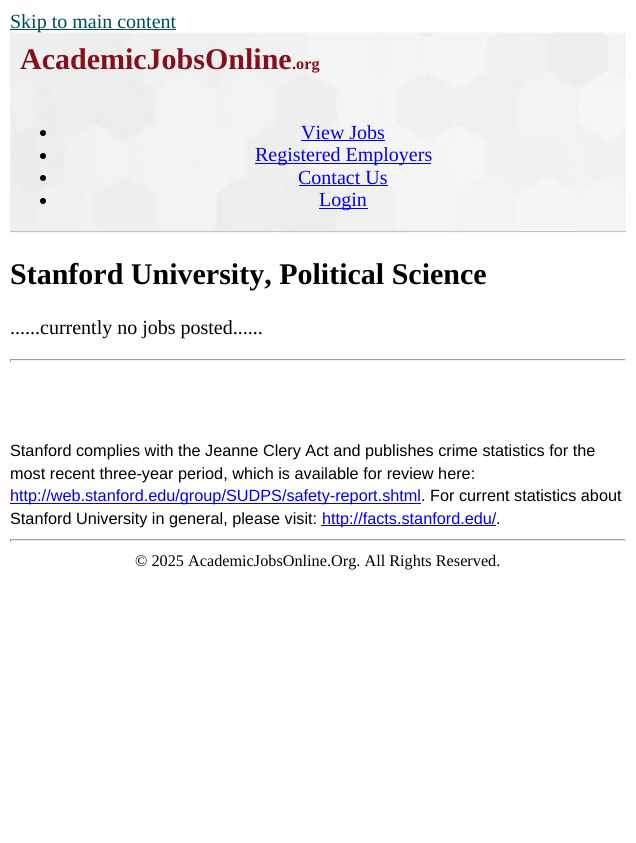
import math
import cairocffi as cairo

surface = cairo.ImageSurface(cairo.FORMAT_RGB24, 636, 843)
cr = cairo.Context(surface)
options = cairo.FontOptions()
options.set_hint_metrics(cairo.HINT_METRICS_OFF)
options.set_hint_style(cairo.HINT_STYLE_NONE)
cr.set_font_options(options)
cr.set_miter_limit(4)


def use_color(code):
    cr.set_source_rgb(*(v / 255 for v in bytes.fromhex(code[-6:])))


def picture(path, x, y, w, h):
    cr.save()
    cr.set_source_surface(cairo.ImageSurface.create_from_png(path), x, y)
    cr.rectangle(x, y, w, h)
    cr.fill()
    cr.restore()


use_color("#ffffff")
cr.paint()
use_color("#004a57")
cr.rectangle(10, 29, 166, 1)
cr.fill()
picture("img1.png", 10, 32, 616, 201)
cr.select_font_face("Liberation Serif")
cr.set_font_size(20)
cr.move_to(10, 28)
cr.show_text("Skip to main content")
cr.select_font_face("Liberation Serif", cairo.FONT_SLANT_NORMAL, cairo.FONT_WEIGHT_BOLD)
cr.set_font_size(30)
use_color("#84101d")
cr.move_to(20, 69)
cr.show_text("AcademicJobsOnline")
cr.set_font_size(16.25)
cr.move_to(292, 69)
cr.show_text(".org")
use_color("#000000")
cr.new_path()
cr.arc(43, 133, 3, 0, 2 * math.pi)
cr.fill()
cr.select_font_face("Liberation Serif")
cr.set_font_size(20)
use_color("#0000ee")
cr.move_to(301, 139)
cr.show_text("View Jobs")
cr.rectangle(301, 140, 84, 1)
cr.fill()
use_color("#000000")
cr.arc(43, 156, 3, 0, 2 * math.pi)
cr.fill()
use_color("#0000ee")
cr.rectangle(255, 163, 176, 1)
cr.fill()
cr.move_to(255, 161)
cr.show_text("Registered Employers")
use_color("#000000")
cr.new_path()
cr.arc(43, 178, 3, 0, 2 * math.pi)
cr.fill()
use_color("#0000ee")
cr.move_to(298, 184)
cr.show_text("Contact Us")
cr.rectangle(299, 185, 89, 1)
cr.fill()
use_color("#000000")
cr.arc(43, 201, 3, 0, 2 * math.pi)
cr.fill()
use_color("#0000ee")
cr.rectangle(319, 208, 49, 1)
cr.fill()
cr.move_to(319, 206)
cr.show_text("Login")
use_color("#c0c2ce")
cr.rectangle(10, 231, 616, 1)
cr.fill()
cr.select_font_face("Liberation Serif", cairo.FONT_SLANT_NORMAL, cairo.FONT_WEIGHT_BOLD)
cr.set_font_size(30)
use_color("#000000")
cr.move_to(10, 284)
cr.show_text("Stanford University, Political Science")
cr.select_font_face("Liberation Serif")
cr.set_font_size(20)
cr.move_to(10, 334)
cr.show_text("......currently no jobs posted......")
use_color("#9f9f9f")
cr.rectangle(10, 359, 616, 1)
cr.fill()
use_color("#eeeeee")
cr.rectangle(625, 359, 1, 3)
cr.fill()
cr.rectangle(10, 360, 616, 1)
cr.fill()
use_color("#9f9f9f")
cr.rectangle(10, 359, 1, 3)
cr.fill()
cr.select_font_face("Liberation Sans")
cr.set_font_size(16.25)
use_color("#000000")
cr.move_to(10, 456)
cr.show_text("Stanford complies with the Jeanne Clery Act and publishes crime statistics for the")
cr.move_to(10, 479)
cr.show_text("most recent three-year period, which is available for review here:")
use_color("#0000ee")
cr.rectangle(10, 503, 411, 1)
cr.fill()
cr.move_to(10, 501)
cr.show_text("http://web.stanford.edu/group/SUDPS/safety-report.shtml")
use_color("#000000")
cr.move_to(421, 501)
cr.show_text(". For current statistics about")
cr.move_to(10, 524)
cr.show_text("Stanford University in general, please visit:")
use_color("#0000ee")
cr.rectangle(321, 525, 175, 1)
cr.fill()
cr.move_to(322, 524)
cr.show_text("http://facts.stanford.edu/")
use_color("#000000")
cr.move_to(496, 524)
cr.show_text(".")
use_color("#9f9f9f")
cr.rectangle(10, 539, 616, 1)
cr.fill()
use_color("#eeeeee")
cr.rectangle(625, 539, 1, 3)
cr.fill()
cr.rectangle(10, 540, 616, 1)
cr.fill()
use_color("#9f9f9f")
cr.rectangle(10, 539, 1, 3)
cr.fill()
cr.select_font_face("Liberation Serif")
use_color("#000000")
cr.move_to(135, 566)
cr.show_text("© 2025 AcademicJobsOnline.Org. All Rights Reserved.")
surface.write_to_png("result.png")
